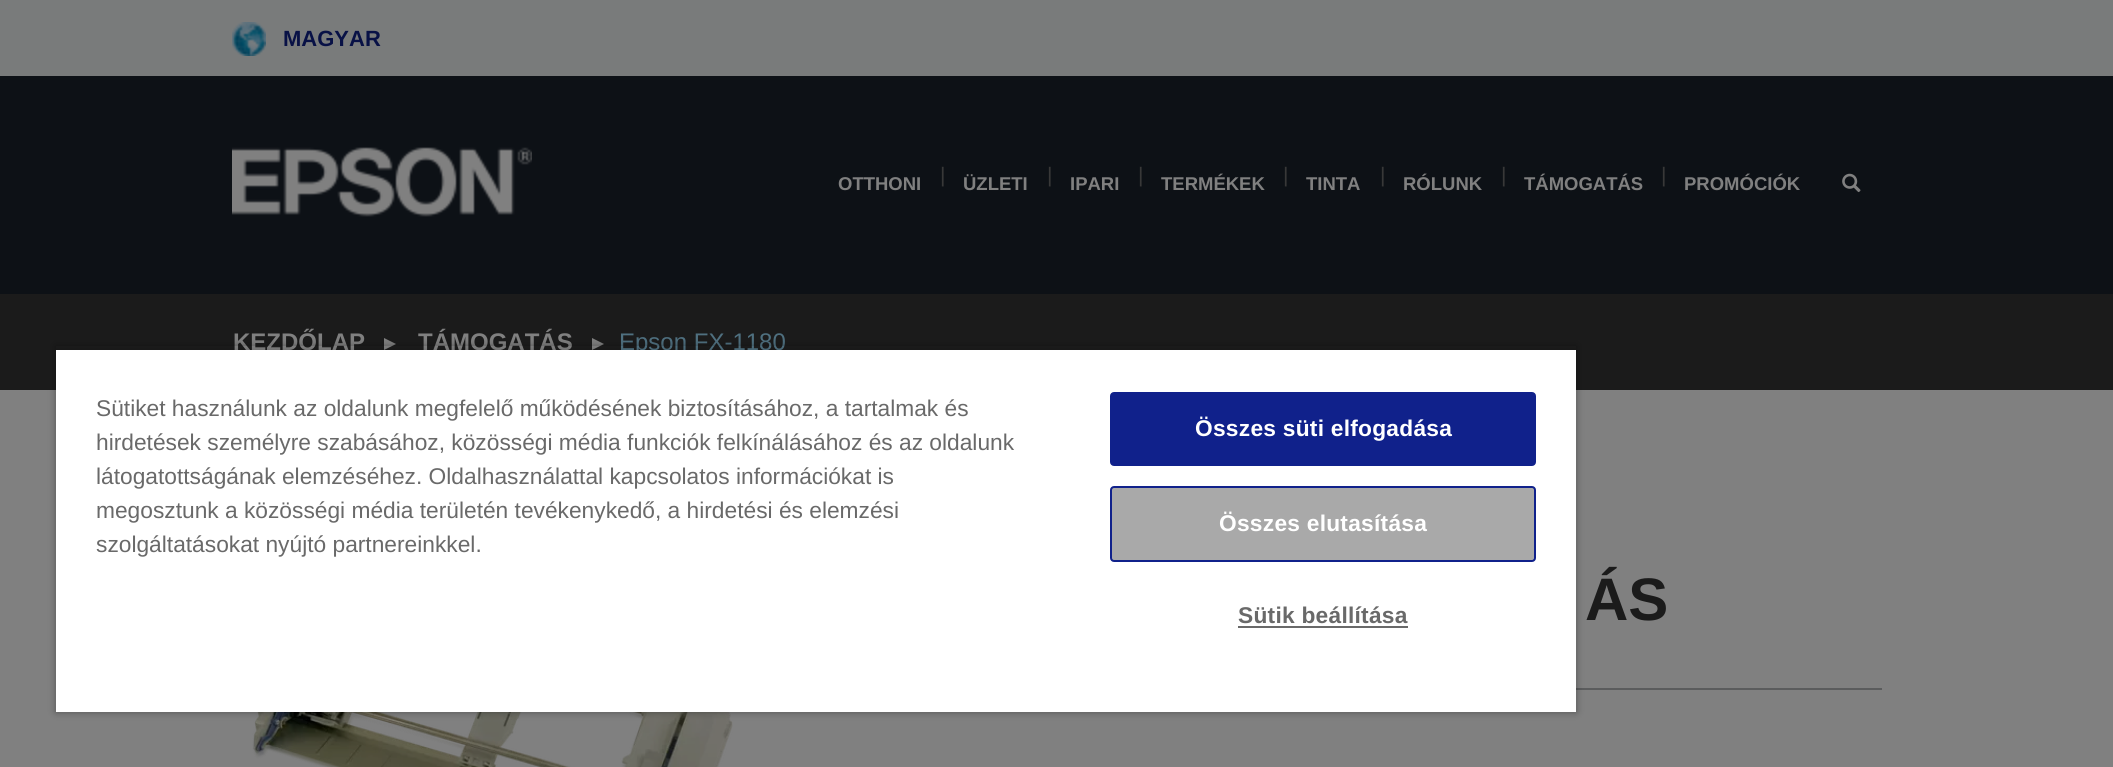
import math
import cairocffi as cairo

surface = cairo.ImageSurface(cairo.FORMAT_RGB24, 2113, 767)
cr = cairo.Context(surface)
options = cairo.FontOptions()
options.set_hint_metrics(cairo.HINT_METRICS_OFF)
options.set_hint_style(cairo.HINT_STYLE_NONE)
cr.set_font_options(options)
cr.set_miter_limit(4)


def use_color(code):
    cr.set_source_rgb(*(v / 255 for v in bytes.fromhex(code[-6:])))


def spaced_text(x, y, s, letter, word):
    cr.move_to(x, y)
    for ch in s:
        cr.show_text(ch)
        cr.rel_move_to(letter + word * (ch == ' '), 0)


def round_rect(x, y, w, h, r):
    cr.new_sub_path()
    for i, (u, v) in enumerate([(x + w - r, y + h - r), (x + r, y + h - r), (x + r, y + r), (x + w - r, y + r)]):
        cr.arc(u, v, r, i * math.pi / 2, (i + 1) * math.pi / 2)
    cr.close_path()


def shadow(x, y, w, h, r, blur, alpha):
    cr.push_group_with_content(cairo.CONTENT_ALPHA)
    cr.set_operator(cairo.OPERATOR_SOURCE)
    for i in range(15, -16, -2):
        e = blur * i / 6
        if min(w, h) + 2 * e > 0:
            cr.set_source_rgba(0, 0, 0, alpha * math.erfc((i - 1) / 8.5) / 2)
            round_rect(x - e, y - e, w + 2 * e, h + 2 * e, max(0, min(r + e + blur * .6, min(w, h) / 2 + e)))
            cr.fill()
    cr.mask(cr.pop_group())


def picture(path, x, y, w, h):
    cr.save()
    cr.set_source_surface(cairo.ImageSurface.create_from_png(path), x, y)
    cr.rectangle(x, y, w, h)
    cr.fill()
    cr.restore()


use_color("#808080")
cr.paint()
use_color("#797b7b")
cr.rectangle(0, 0, 2113, 76)
cr.fill()
picture("img1.png", 232, 22, 34, 34)
cr.select_font_face("Liberation Sans", cairo.FONT_SLANT_NORMAL, cairo.FONT_WEIGHT_BOLD)
cr.set_font_size(22)
use_color("#081146")
cr.move_to(283, 46)
cr.show_text("MAGYAR")
use_color("#0d1116")
cr.rectangle(0, 76, 2113, 218)
cr.fill()
picture("img2.png", 232, 147, 300, 70)
cr.set_font_size(18.5)
use_color("#808080")
cr.move_to(838, 190)
cr.show_text("OTTHONI")
cr.select_font_face("Liberation Sans")
cr.set_font_size(21)
use_color("#383838")
cr.move_to(940, 182)
cr.show_text("|")
cr.select_font_face("Liberation Sans", cairo.FONT_SLANT_NORMAL, cairo.FONT_WEIGHT_BOLD)
cr.set_font_size(18.5)
use_color("#808080")
cr.move_to(963, 190)
cr.show_text("ÜZLETI")
cr.select_font_face("Liberation Sans")
cr.set_font_size(21)
use_color("#383838")
cr.move_to(1047, 182)
cr.show_text("|")
cr.select_font_face("Liberation Sans", cairo.FONT_SLANT_NORMAL, cairo.FONT_WEIGHT_BOLD)
cr.set_font_size(18.5)
use_color("#808080")
cr.move_to(1070, 190)
cr.show_text("IPARI")
cr.select_font_face("Liberation Sans")
cr.set_font_size(21)
use_color("#383838")
cr.move_to(1138, 182)
cr.show_text("|")
cr.select_font_face("Liberation Sans", cairo.FONT_SLANT_NORMAL, cairo.FONT_WEIGHT_BOLD)
cr.set_font_size(18.5)
use_color("#808080")
cr.move_to(1161, 190)
cr.show_text("TERMÉKEK")
cr.select_font_face("Liberation Sans")
cr.set_font_size(21)
use_color("#383838")
cr.move_to(1283, 182)
cr.show_text("|")
cr.select_font_face("Liberation Sans", cairo.FONT_SLANT_NORMAL, cairo.FONT_WEIGHT_BOLD)
cr.set_font_size(18.5)
use_color("#808080")
cr.move_to(1306, 190)
cr.show_text("TINTA")
cr.select_font_face("Liberation Sans")
cr.set_font_size(21)
use_color("#383838")
cr.move_to(1380, 182)
cr.show_text("|")
cr.select_font_face("Liberation Sans", cairo.FONT_SLANT_NORMAL, cairo.FONT_WEIGHT_BOLD)
cr.set_font_size(18.5)
use_color("#808080")
cr.move_to(1403, 190)
cr.show_text("RÓLUNK")
cr.select_font_face("Liberation Sans")
cr.set_font_size(21)
use_color("#383838")
cr.move_to(1501, 182)
cr.show_text("|")
cr.select_font_face("Liberation Sans", cairo.FONT_SLANT_NORMAL, cairo.FONT_WEIGHT_BOLD)
cr.set_font_size(18.5)
use_color("#808080")
cr.move_to(1524, 190)
cr.show_text("TÁMOGATÁS")
cr.select_font_face("Liberation Sans")
cr.set_font_size(21)
use_color("#383838")
cr.move_to(1661, 182)
cr.show_text("|")
cr.select_font_face("Liberation Sans", cairo.FONT_SLANT_NORMAL, cairo.FONT_WEIGHT_BOLD)
cr.set_font_size(18.5)
use_color("#808080")
cr.move_to(1684, 190)
cr.show_text("PROMÓCIÓK")
picture("img3.png", 1842, 173, 19, 20)
use_color("#1b1b1b")
cr.rectangle(0, 294, 2113, 96)
cr.fill()
cr.set_font_size(24)
use_color("#808080")
cr.move_to(233, 350)
cr.show_text("KEZDŐLAP")
cr.new_path()
cr.move_to(384, 350)
cr.line_to(384, 338)
cr.line_to(396, 344)
cr.close_path()
cr.fill()
cr.move_to(418, 350)
cr.show_text("TÁMOGATÁS")
cr.new_path()
cr.move_to(592, 350)
cr.line_to(592, 338)
cr.line_to(604, 344)
cr.close_path()
cr.fill()
cr.select_font_face("Liberation Sans")
use_color("#4f7080")
cr.move_to(619, 350)
cr.show_text("Epson FX-1180")
use_color("#5b5c5d")
cr.rectangle(1576, 688, 306, 2)
cr.fill()
cr.select_font_face("Liberation Sans", cairo.FONT_SLANT_NORMAL, cairo.FONT_WEIGHT_BOLD)
cr.set_font_size(60)
use_color("#1b1b1b")
cr.move_to(1585, 620)
cr.show_text("ÁS")
picture("img4.png", 252, 712, 481, 55)
cr.save()
cr.set_fill_rule(cairo.FILL_RULE_EVEN_ODD)
cr.new_path()
cr.move_to(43, 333)
cr.line_to(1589, 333)
cr.line_to(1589, 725)
cr.line_to(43, 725)
cr.close_path()
cr.move_to(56, 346)
cr.line_to(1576, 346)
cr.line_to(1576, 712)
cr.line_to(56, 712)
cr.close_path()
cr.clip()
use_color("#000000")
shadow(56, 346, 1520, 366, 0, 4, 0.35)
cr.restore()
cr.save()
cr.rectangle(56, 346, 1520, 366)
cr.clip()
use_color("#000000")
shadow(56, 350, 1520, 362, 0, 4, 0.2)
cr.restore()
use_color("#ffffff")
cr.rectangle(56, 350, 1520, 362)
cr.fill()
cr.select_font_face("Liberation Sans")
cr.set_font_size(22.75)
use_color("#696969")
cr.move_to(96, 416)
cr.show_text("Sütiket használunk az oldalunk megfelelő működésének biztosításához, a tartalmak és")
cr.move_to(96, 450)
cr.show_text("hirdetések személyre szabásához, közösségi média funkciók felkínálásához és az oldalunk")
cr.move_to(96, 484)
cr.show_text("látogatottságának elemzéséhez. Oldalhasználattal kapcsolatos információkat is")
cr.move_to(96, 518)
cr.show_text("megosztunk a közösségi média területén tevékenykedő, a hirdetési és elemzési")
cr.move_to(96, 552)
cr.show_text("szolgáltatásokat nyújtó partnereinkkel.")
use_color("#10218b")
round_rect(1111, 393, 424, 72, 3)
cr.fill_preserve()
cr.stroke()
cr.select_font_face("Liberation Sans", cairo.FONT_SLANT_NORMAL, cairo.FONT_WEIGHT_BOLD)
use_color("#ffffff")
spaced_text(1195, 436, "Összes süti elfogadása", 0.25, 0)
use_color("#a9a9a9")
round_rect(1111, 487, 424, 74, 3)
cr.fill_preserve()
use_color("#10218b")
cr.stroke()
use_color("#ffffff")
spaced_text(1219, 531, "Összes elutasítása", 0.25, 0)
use_color("#696969")
spaced_text(1238, 623, "Sütik beállítása", 0.25, 0)
cr.rectangle(1238, 626, 170, 2)
cr.fill()
surface.write_to_png("result.png")
